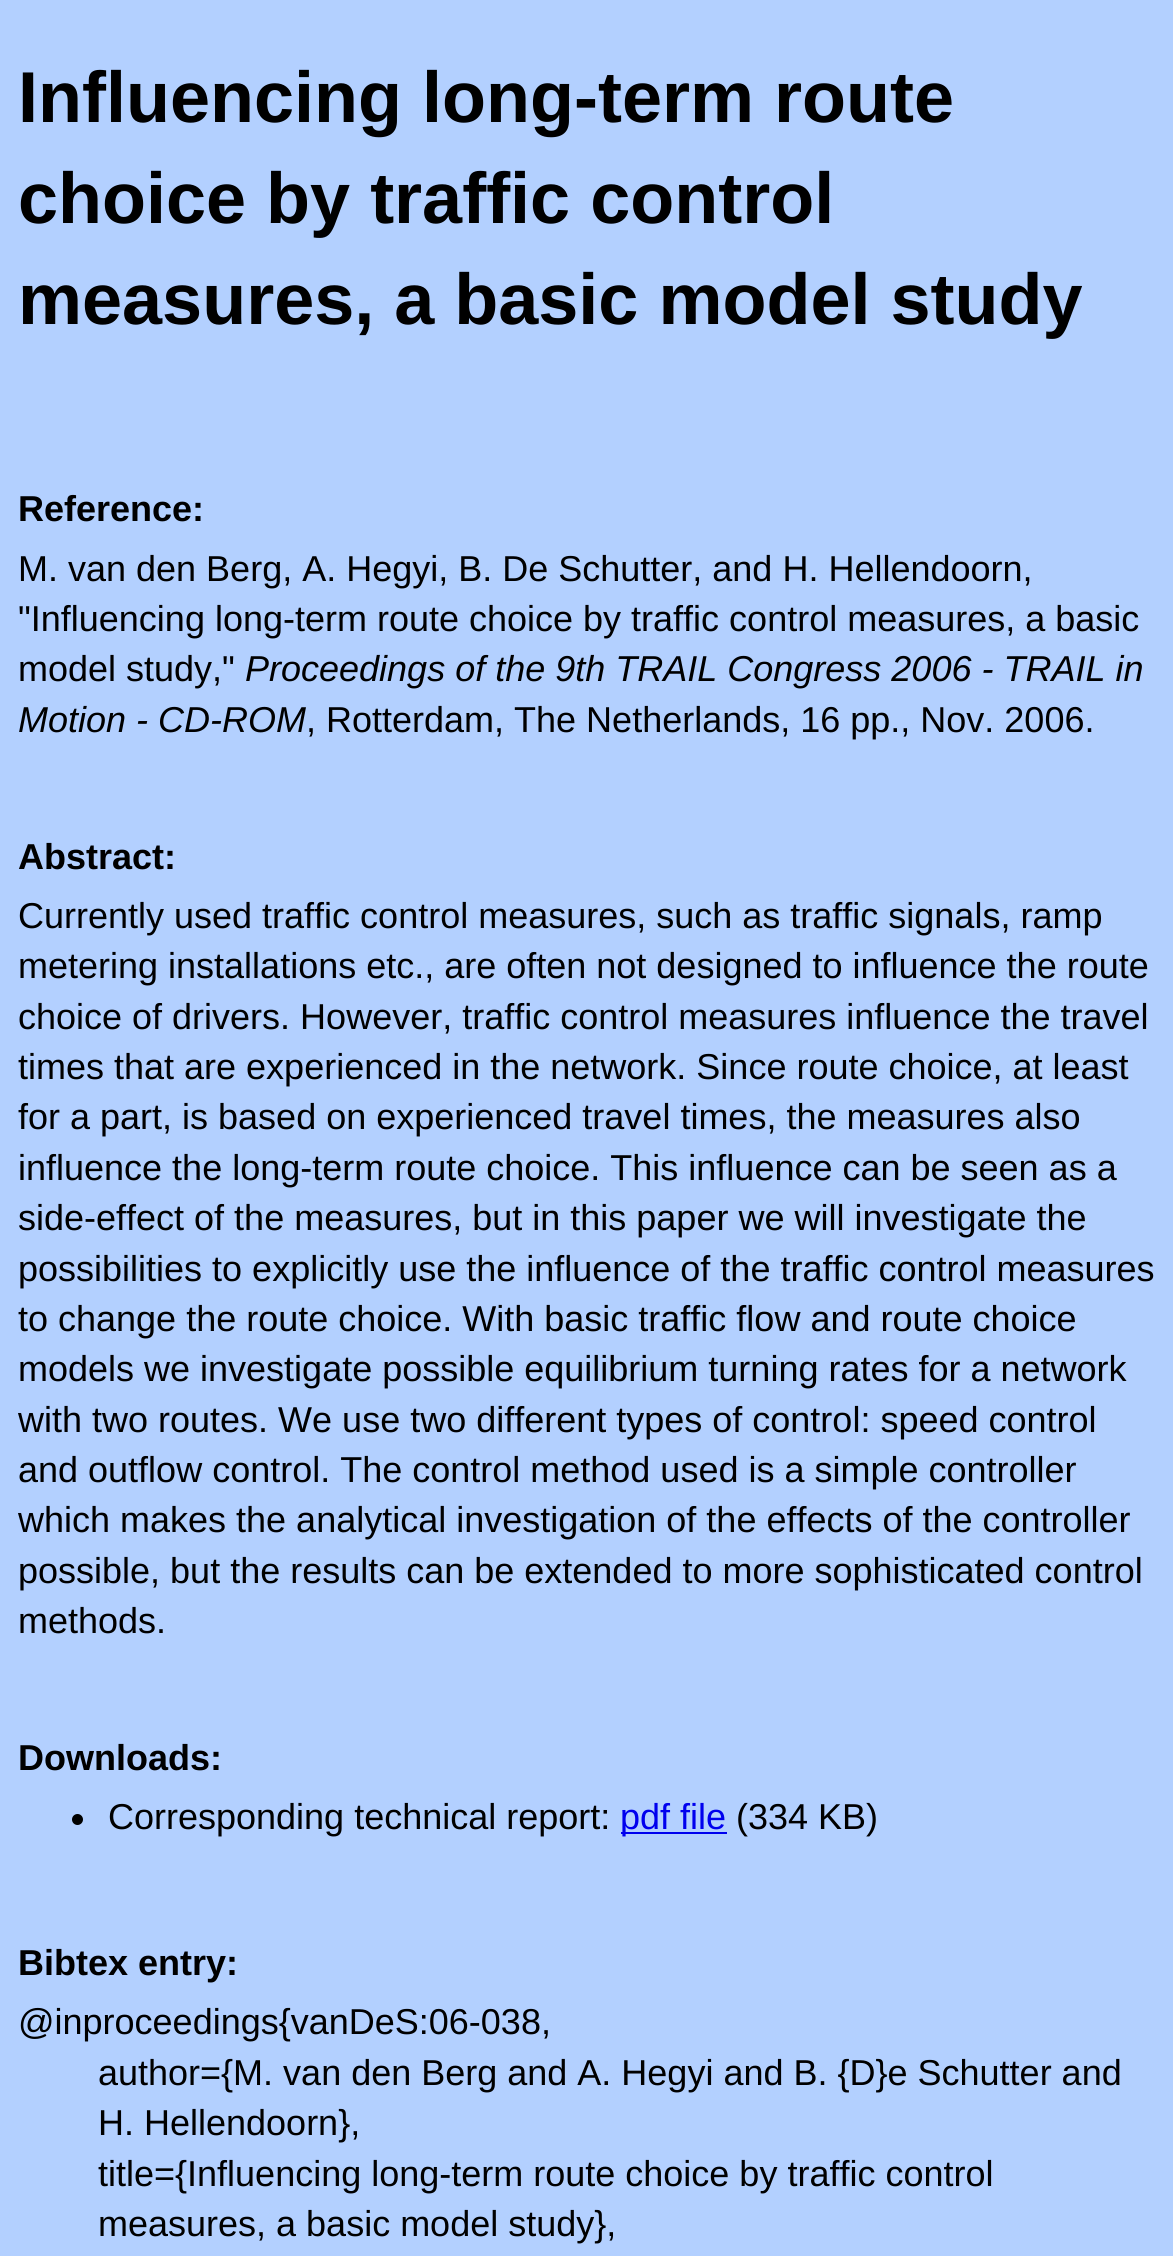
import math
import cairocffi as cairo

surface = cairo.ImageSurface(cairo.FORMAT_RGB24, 1173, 2256)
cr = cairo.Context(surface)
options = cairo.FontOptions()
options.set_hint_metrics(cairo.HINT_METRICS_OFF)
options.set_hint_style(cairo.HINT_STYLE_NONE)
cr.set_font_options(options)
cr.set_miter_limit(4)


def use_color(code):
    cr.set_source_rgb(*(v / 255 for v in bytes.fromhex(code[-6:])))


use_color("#b3d0ff")
cr.paint()
cr.select_font_face("Liberation Sans", cairo.FONT_SLANT_NORMAL, cairo.FONT_WEIGHT_BOLD)
cr.set_font_size(72)
use_color("#000000")
cr.move_to(18, 122)
cr.show_text("Influencing long-term route")
cr.move_to(18, 223)
cr.show_text("choice by traffic control")
cr.move_to(18, 324)
cr.show_text("measures, a basic model study")
cr.set_font_size(36)
cr.move_to(18, 521)
cr.show_text("Reference:")
cr.select_font_face("Liberation Sans")
cr.move_to(18, 581)
cr.show_text("M. van den Berg, A. Hegyi, B. De Schutter, and H. Hellendoorn,")
cr.move_to(18, 631)
cr.show_text("\"Influencing long-term route choice by traffic control measures, a basic")
cr.move_to(18, 681)
cr.show_text("model study,\"")
cr.select_font_face("Liberation Sans", cairo.FONT_SLANT_ITALIC)
cr.move_to(245, 681)
cr.show_text("Proceedings of the 9th TRAIL Congress 2006 - TRAIL in")
cr.move_to(18, 732)
cr.show_text("Motion - CD-ROM")
cr.select_font_face("Liberation Sans")
cr.move_to(306, 732)
cr.show_text(", Rotterdam, The Netherlands, 16 pp., Nov. 2006.")
cr.select_font_face("Liberation Sans", cairo.FONT_SLANT_NORMAL, cairo.FONT_WEIGHT_BOLD)
cr.move_to(18, 869)
cr.show_text("Abstract:")
cr.select_font_face("Liberation Sans")
cr.move_to(18, 928)
cr.show_text("Currently used traffic control measures, such as traffic signals, ramp")
cr.move_to(18, 978)
cr.show_text("metering installations etc., are often not designed to influence the route")
cr.move_to(18, 1029)
cr.show_text("choice of drivers. However, traffic control measures influence the travel")
cr.move_to(18, 1079)
cr.show_text("times that are experienced in the network. Since route choice, at least")
cr.move_to(18, 1129)
cr.show_text("for a part, is based on experienced travel times, the measures also")
cr.move_to(18, 1180)
cr.show_text("influence the long-term route choice. This influence can be seen as a")
cr.move_to(18, 1230)
cr.show_text("side-effect of the measures, but in this paper we will investigate the")
cr.move_to(18, 1281)
cr.show_text("possibilities to explicitly use the influence of the traffic control measures")
cr.move_to(18, 1331)
cr.show_text("to change the route choice. With basic traffic flow and route choice")
cr.move_to(18, 1381)
cr.show_text("models we investigate possible equilibrium turning rates for a network")
cr.move_to(18, 1432)
cr.show_text("with two routes. We use two different types of control: speed control")
cr.move_to(18, 1482)
cr.show_text("and outflow control. The control method used is a simple controller")
cr.move_to(18, 1532)
cr.show_text("which makes the analytical investigation of the effects of the controller")
cr.move_to(18, 1583)
cr.show_text("possible, but the results can be extended to more sophisticated control")
cr.move_to(18, 1633)
cr.show_text("methods.")
cr.select_font_face("Liberation Sans", cairo.FONT_SLANT_NORMAL, cairo.FONT_WEIGHT_BOLD)
cr.move_to(18, 1770)
cr.show_text("Downloads:")
cr.new_path()
cr.arc(77.5, 1819.5, 5.5, 0, 2 * math.pi)
cr.fill()
cr.select_font_face("Liberation Sans")
cr.move_to(108, 1829)
cr.show_text("Corresponding technical report:")
use_color("#0000ee")
cr.rectangle(621, 1832, 106, 2)
cr.fill()
cr.move_to(620, 1829)
cr.show_text("pdf file")
use_color("#000000")
cr.move_to(736, 1829)
cr.show_text("(334 KB)")
cr.select_font_face("Liberation Sans", cairo.FONT_SLANT_NORMAL, cairo.FONT_WEIGHT_BOLD)
cr.move_to(18, 1975)
cr.show_text("Bibtex entry:")
cr.select_font_face("Liberation Sans")
cr.move_to(18, 2034)
cr.show_text("@inproceedings{vanDeS:06-038,")
cr.move_to(98, 2085)
cr.show_text("author={M. van den Berg and A. Hegyi and B. {D}e Schutter and")
cr.move_to(98, 2135)
cr.show_text("H. Hellendoorn},")
cr.move_to(98, 2186)
cr.show_text("title={Influencing long-term route choice by traffic control")
cr.move_to(98, 2236)
cr.show_text("measures, a basic model study},")
surface.write_to_png("result.png")
